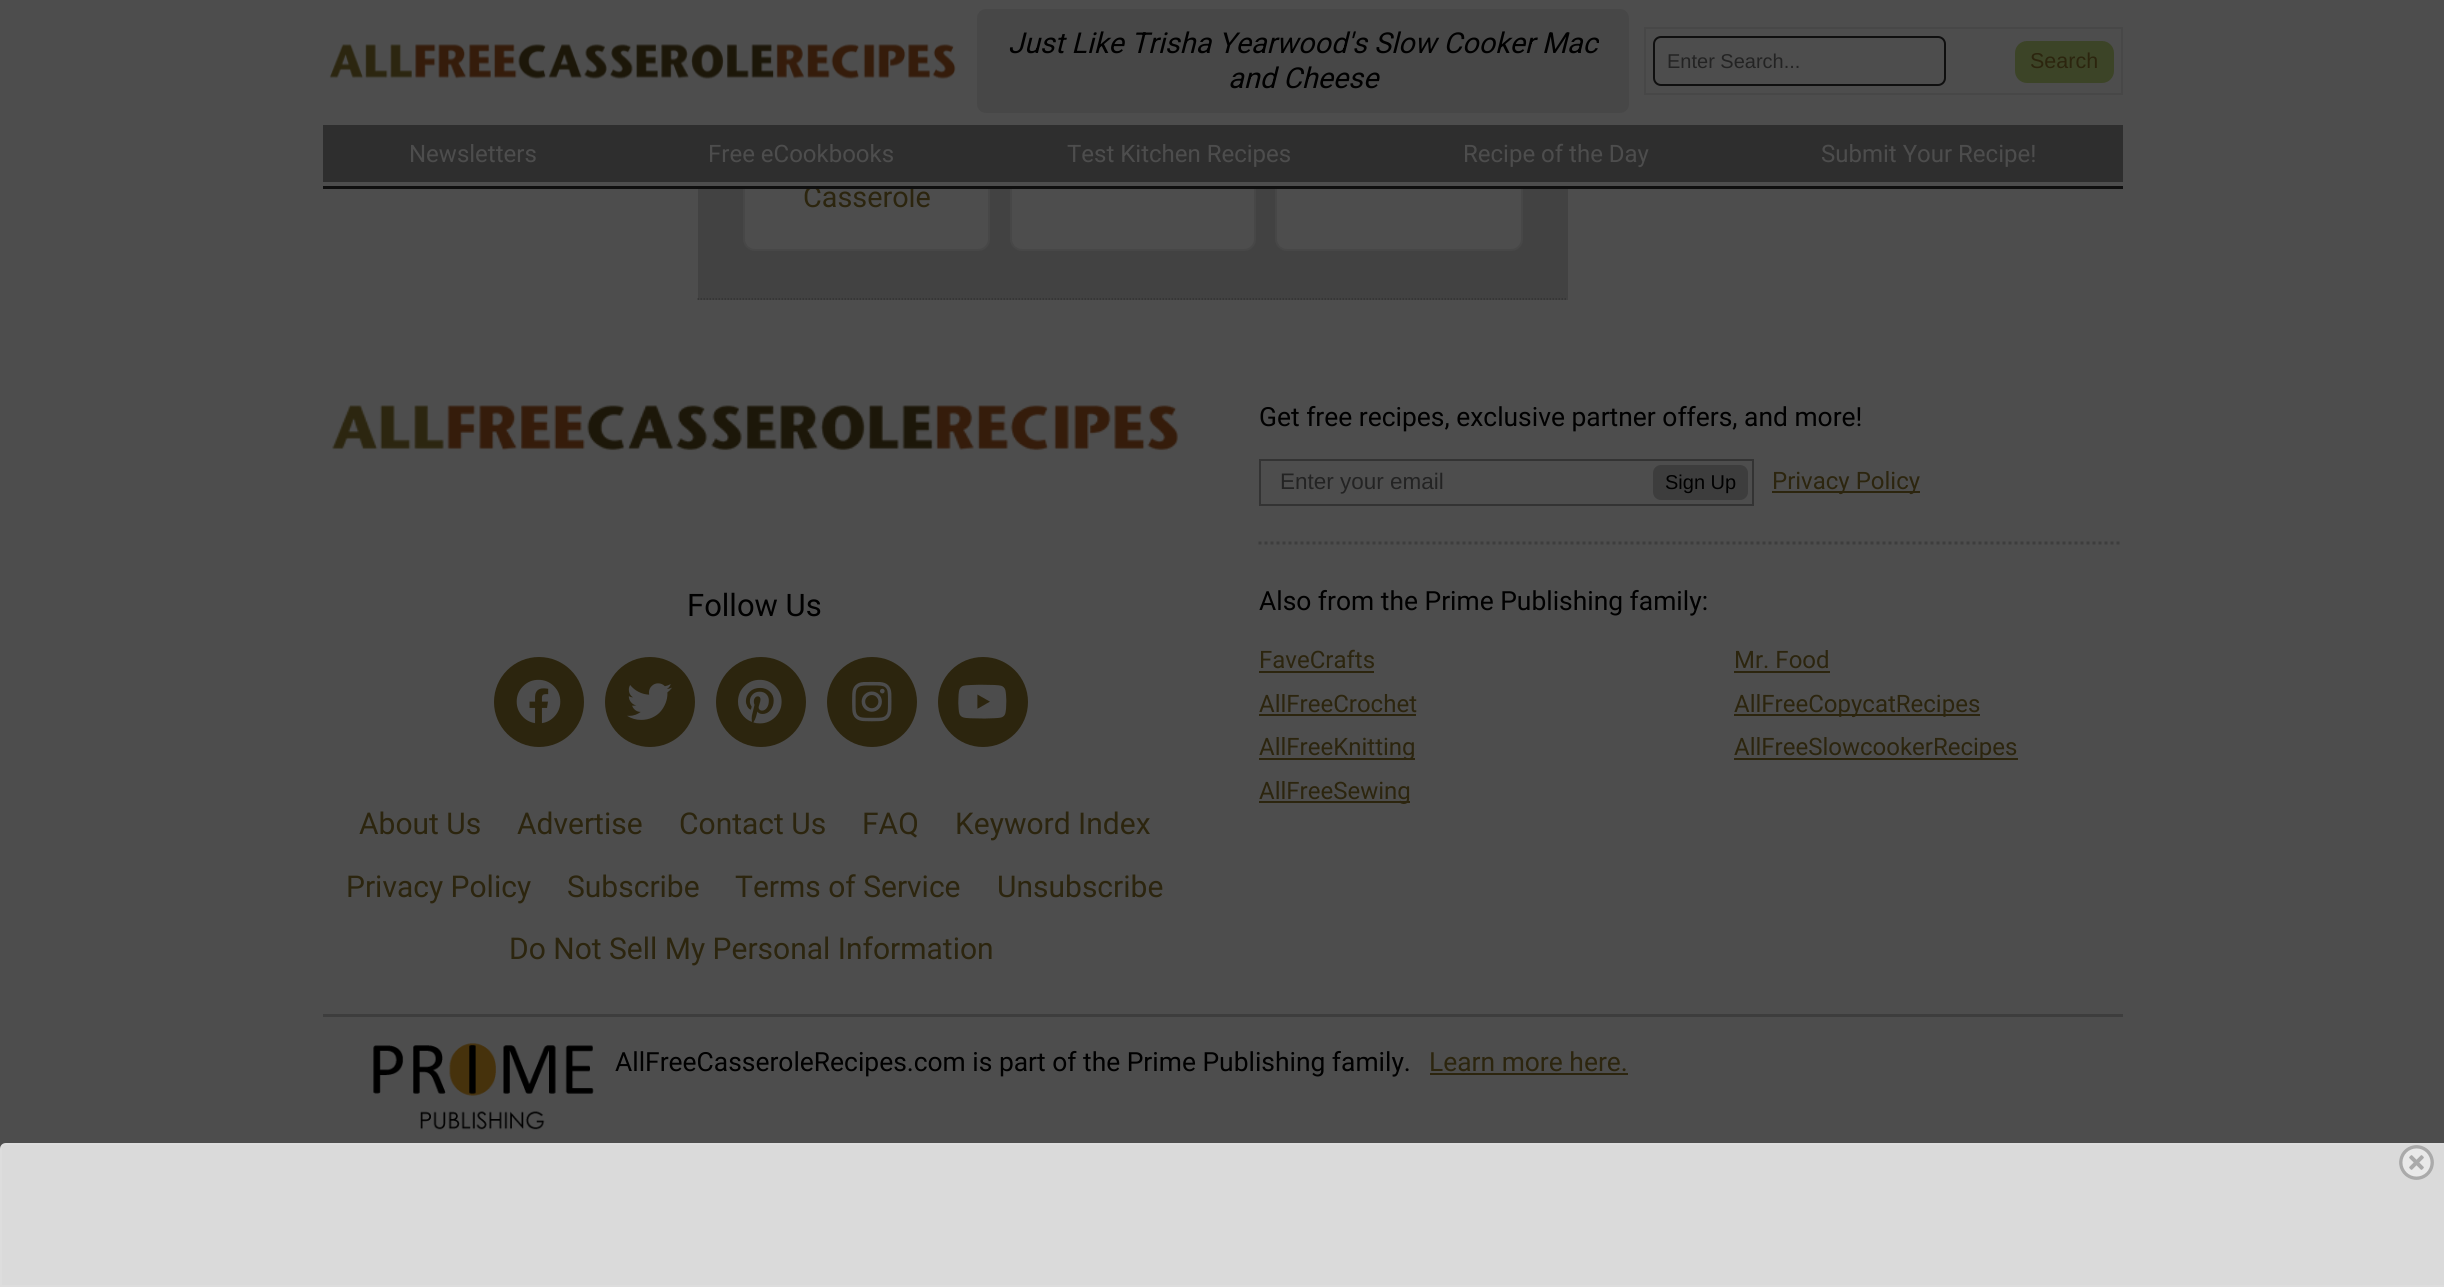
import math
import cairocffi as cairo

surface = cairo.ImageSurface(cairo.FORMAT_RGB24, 2444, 1287)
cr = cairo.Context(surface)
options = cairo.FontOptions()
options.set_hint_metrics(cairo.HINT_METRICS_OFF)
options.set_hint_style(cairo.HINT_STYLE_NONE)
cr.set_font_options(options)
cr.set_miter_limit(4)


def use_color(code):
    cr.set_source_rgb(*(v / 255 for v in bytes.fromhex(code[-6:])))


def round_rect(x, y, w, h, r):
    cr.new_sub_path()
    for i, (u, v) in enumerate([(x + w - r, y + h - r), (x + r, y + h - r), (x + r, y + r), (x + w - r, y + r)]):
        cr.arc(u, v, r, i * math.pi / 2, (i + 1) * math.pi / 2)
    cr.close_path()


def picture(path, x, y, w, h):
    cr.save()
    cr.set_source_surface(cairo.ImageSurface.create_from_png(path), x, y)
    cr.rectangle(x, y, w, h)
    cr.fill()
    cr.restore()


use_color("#4d4d4d")
cr.paint()
use_color("#424242")
cr.rectangle(698, 189, 870, 111)
cr.fill()
use_color("#4d4d4d")
round_rect(744, -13, 245, 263, 11)
cr.fill_preserve()
use_color("#474747")
cr.stroke()
cr.select_font_face("Roboto")
cr.set_font_size(28.8)
use_color("#2c250e")
cr.move_to(803, 207)
cr.show_text("Casserole")
use_color("#4d4d4d")
round_rect(1011, -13, 244, 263, 11)
cr.fill_preserve()
use_color("#474747")
cr.stroke()
use_color("#4d4d4d")
round_rect(1276, -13, 246, 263, 11)
cr.fill_preserve()
use_color("#474747")
cr.stroke()
use_color("#4d4d4d")
cr.rectangle(743, 0, 780, 186)
cr.fill()
use_color("#0f0f0f")
cr.rectangle(323, 186, 1800, 3)
cr.fill()
picture("img1.png", 329, 44, 627, 35)
use_color("#474747")
round_rect(977, 9, 652, 104, 9)
cr.fill()
cr.select_font_face("Roboto", cairo.FONT_SLANT_ITALIC)
use_color("#000000")
cr.move_to(1008, 53)
cr.show_text("Just Like Trisha Yearwood's Slow Cooker Mac")
cr.move_to(1228, 88)
cr.show_text("and Cheese")
cr.rectangle(1645, 28, 477, 66)
use_color("#474747")
cr.stroke()
round_rect(1654, 37, 291, 48, 7)
use_color("#0f0f0f")
cr.stroke()
cr.select_font_face("Liberation Sans")
cr.set_font_size(20)
use_color("#232323")
cr.move_to(1667, 68)
cr.show_text("Enter Search...")
use_color("#3c4427")
round_rect(2015, 41, 99, 42, 12)
cr.fill()
cr.set_font_size(21.5)
use_color("#2c250e")
cr.move_to(2030, 68)
cr.show_text("Search")
use_color("#2e2e2e")
cr.rectangle(323, 125, 1800, 57)
cr.fill()
cr.select_font_face("Roboto")
cr.set_font_size(24)
use_color("#4d4d4d")
cr.move_to(409, 162)
cr.show_text("Newsletters")
cr.move_to(708, 162)
cr.show_text("Free eCookbooks")
cr.move_to(1067, 162)
cr.show_text("Test Kitchen Recipes")
cr.move_to(1463, 162)
cr.show_text("Recipe of the Day")
cr.move_to(1821, 162)
cr.show_text("Submit Your Recipe!")
cr.new_path()
cr.move_to(697.5, 299)
cr.line_to(1567.5, 299)
use_color("#333333")
cr.set_line_width(1.5)
cr.set_dash([1.5, 1.5])
cr.stroke()
picture("img2.png", 332, 405, 847, 46)
cr.new_path()
cr.move_to(1258.5, 543)
cr.line_to(2122.5, 543)
use_color("#3d3d3d")
cr.set_line_width(3)
cr.set_dash([3, 3])
cr.stroke()
cr.set_font_size(26.4)
use_color("#000000")
cr.move_to(1259, 426)
cr.show_text("Get free recipes, exclusive partner offers, and more!")
cr.rectangle(1260, 460, 493, 45)
use_color("#333333")
cr.set_line_width(2)
cr.set_dash([])
cr.stroke()
cr.select_font_face("Liberation Sans")
cr.set_font_size(22.5)
use_color("#232323")
cr.move_to(1280, 489)
cr.show_text("Enter your email")
use_color("#3d3d3d")
round_rect(1653, 465, 95, 35, 8)
cr.fill()
cr.set_font_size(20)
use_color("#000000")
cr.move_to(1665, 489)
cr.show_text("Sign Up")
use_color("#2c250e")
cr.rectangle(1772, 491, 148, 2)
cr.fill()
cr.select_font_face("Roboto")
cr.set_font_size(24)
cr.move_to(1772, 489)
cr.show_text("Privacy Policy")
cr.set_font_size(31)
use_color("#000000")
cr.move_to(687, 616)
cr.show_text("Follow Us")
use_color("#2c250e")
cr.new_path()
cr.arc(539, 702, 45, 0, 2 * math.pi)
cr.fill()
picture("img3.png", 516, 679, 45, 45)
cr.arc(650, 702, 45, 0, 2 * math.pi)
cr.fill()
picture("img4.png", 627, 683, 45, 37)
cr.arc(761, 702, 45, 0, 2 * math.pi)
cr.fill()
picture("img5.png", 738, 679, 44, 45)
cr.arc(872, 702, 45, 0, 2 * math.pi)
cr.fill()
picture("img6.png", 852, 681, 40, 41)
cr.arc(983, 702, 45, 0, 2 * math.pi)
cr.fill()
picture("img7.png", 958, 684, 49, 35)
cr.set_font_size(30)
cr.move_to(359, 834)
cr.show_text("About Us")
cr.move_to(517, 834)
cr.show_text("Advertise")
cr.move_to(679, 834)
cr.show_text("Contact Us")
cr.move_to(862, 834)
cr.show_text("FAQ")
cr.move_to(955, 834)
cr.show_text("Keyword Index")
cr.move_to(346, 897)
cr.show_text("Privacy Policy")
cr.move_to(567, 897)
cr.show_text("Subscribe")
cr.move_to(735, 897)
cr.show_text("Terms of Service")
cr.move_to(997, 897)
cr.show_text("Unsubscribe")
cr.move_to(509, 959)
cr.show_text("Do Not Sell My Personal Information")
cr.set_font_size(26.4)
use_color("#000000")
cr.move_to(1259, 610)
cr.show_text("Also from the Prime Publishing family:")
cr.set_font_size(24)
use_color("#2c250e")
cr.move_to(1259, 668)
cr.show_text("FaveCrafts")
cr.rectangle(1259, 671, 115, 2)
cr.fill()
cr.move_to(1259, 712)
cr.show_text("AllFreeCrochet")
cr.rectangle(1259, 714, 157, 2)
cr.fill()
cr.rectangle(1259, 758, 156, 2)
cr.fill()
cr.move_to(1259, 755)
cr.show_text("AllFreeKnitting")
cr.rectangle(1259, 801, 151, 2)
cr.fill()
cr.move_to(1259, 799)
cr.show_text("AllFreeSewing")
cr.move_to(1734, 668)
cr.show_text("Mr. Food")
cr.rectangle(1734, 671, 96, 2)
cr.fill()
cr.rectangle(1734, 714, 246, 2)
cr.fill()
cr.move_to(1734, 712)
cr.show_text("AllFreeCopycatRecipes")
cr.rectangle(1734, 758, 284, 2)
cr.fill()
cr.move_to(1734, 755)
cr.show_text("AllFreeSlowcookerRecipes")
use_color("#3d3d3d")
cr.rectangle(323, 1014, 1800, 3)
cr.fill()
picture("img8.png", 373, 1043, 221, 87)
cr.set_font_size(26.4)
use_color("#000000")
cr.move_to(615, 1071)
cr.show_text("AllFreeCasseroleRecipes.com is part of the Prime Publishing family.")
use_color("#2c250e")
cr.move_to(1429, 1071)
cr.show_text("Learn more here.")
cr.rectangle(1430, 1073, 198, 2)
cr.fill()
cr.set_source_rgba(0.922, 0.922, 0.922, 0.89)
cr.new_path()
cr.move_to(6, 1144)
cr.line_to(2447, 1144)
cr.line_to(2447, 1286)
cr.line_to(1, 1286)
cr.line_to(1, 1149)
cr.curve_to(1, 1146, 3, 1144, 6, 1144)
cr.close_path()
cr.fill_preserve()
use_color("#dddddd")
cr.stroke()
picture("img9.png", 2399, 1145, 35, 35)
surface.write_to_png("result.png")
